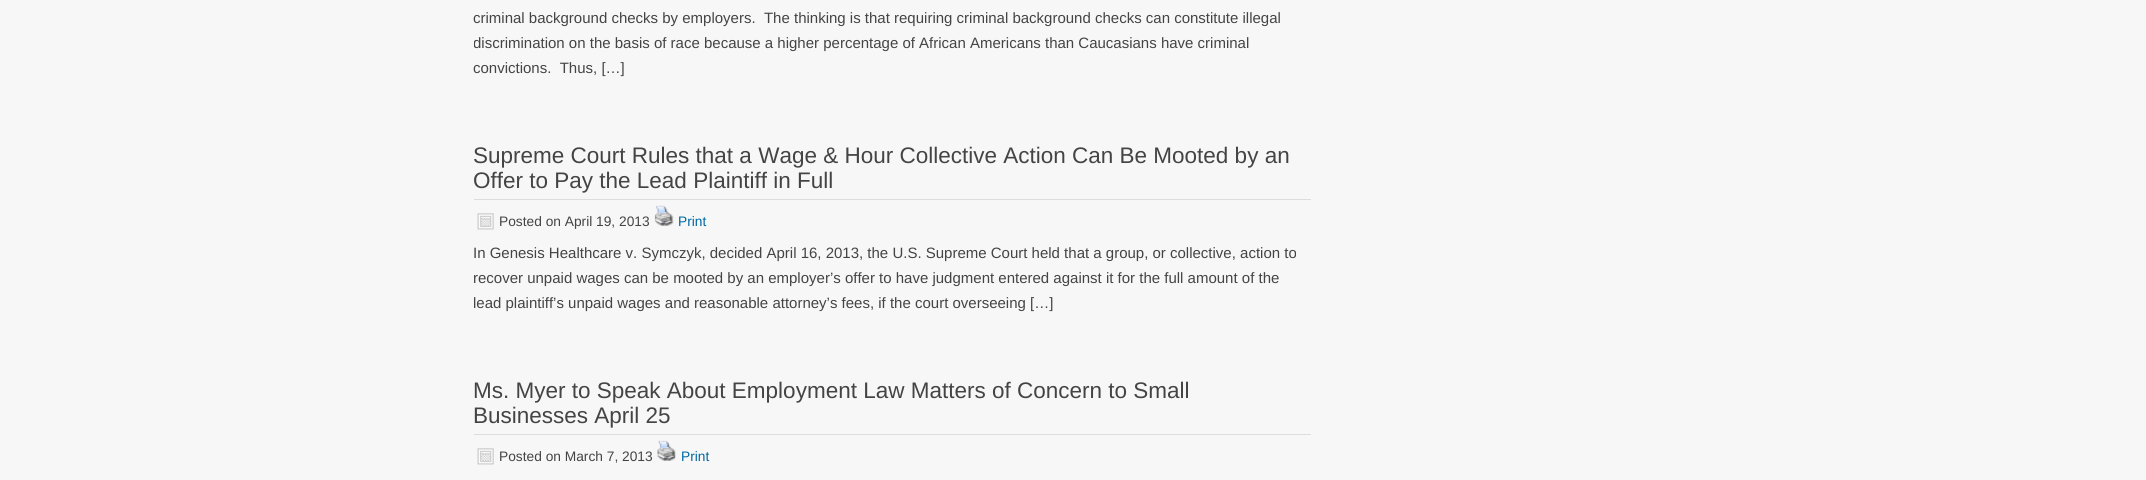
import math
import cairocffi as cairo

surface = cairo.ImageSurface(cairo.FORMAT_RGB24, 2146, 480)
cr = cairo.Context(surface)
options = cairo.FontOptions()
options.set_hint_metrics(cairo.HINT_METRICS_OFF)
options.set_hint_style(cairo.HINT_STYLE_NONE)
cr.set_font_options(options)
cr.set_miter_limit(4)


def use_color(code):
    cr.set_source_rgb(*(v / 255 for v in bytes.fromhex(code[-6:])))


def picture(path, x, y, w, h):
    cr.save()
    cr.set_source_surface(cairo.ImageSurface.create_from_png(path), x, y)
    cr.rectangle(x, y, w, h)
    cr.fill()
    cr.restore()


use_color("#f7f7f7")
cr.paint()
cr.select_font_face("Liberation Sans")
cr.set_font_size(15)
use_color("#444444")
cr.move_to(473, 23)
cr.show_text("criminal background checks by employers.  The thinking is that requiring criminal background checks can constitute illegal")
cr.save()
cr.rectangle(474, 0, 837, 93)
cr.clip()
cr.move_to(473, 48)
cr.show_text("discrimination on the basis of race because a higher percentage of African Americans than Caucasians have criminal")
cr.restore()
cr.move_to(473, 73)
cr.show_text("convictions.  Thus, […]")
use_color("#dddddd")
cr.rectangle(474, 199, 837, 1)
cr.fill()
cr.set_font_size(22.5)
use_color("#444444")
cr.move_to(473, 163)
cr.show_text("Supreme Court Rules that a Wage & Hour Collective Action Can Be Mooted by an")
cr.move_to(473, 188)
cr.show_text("Offer to Pay the Lead Plaintiff in Full")
picture("img1.png", 477, 213, 17, 17)
cr.set_font_size(13.75)
cr.move_to(499, 226)
cr.show_text("Posted on April 19, 2013")
picture("img2.png", 654, 205, 20, 21)
use_color("#0067a2")
cr.move_to(678, 226)
cr.show_text("Print")
cr.set_font_size(15)
use_color("#444444")
cr.move_to(473, 258)
cr.show_text("In Genesis Healthcare v. Symczyk, decided April 16, 2013, the U.S. Supreme Court held that a group, or collective, action to")
cr.move_to(473, 283)
cr.show_text("recover unpaid wages can be mooted by an employer’s offer to have judgment entered against it for the full amount of the")
cr.move_to(473, 308)
cr.show_text("lead plaintiff’s unpaid wages and reasonable attorney’s fees, if the court overseeing […]")
use_color("#dddddd")
cr.rectangle(474, 434, 837, 1)
cr.fill()
cr.set_font_size(22.5)
use_color("#444444")
cr.move_to(473, 398)
cr.show_text("Ms. Myer to Speak About Employment Law Matters of Concern to Small")
cr.move_to(473, 423)
cr.show_text("Businesses April 25")
picture("img1.png", 477, 448, 17, 17)
cr.set_font_size(13.75)
cr.move_to(499, 461)
cr.show_text("Posted on March 7, 2013")
picture("img3.png", 657, 440, 19, 21)
use_color("#0067a2")
cr.move_to(681, 461)
cr.show_text("Print")
surface.write_to_png("result.png")
